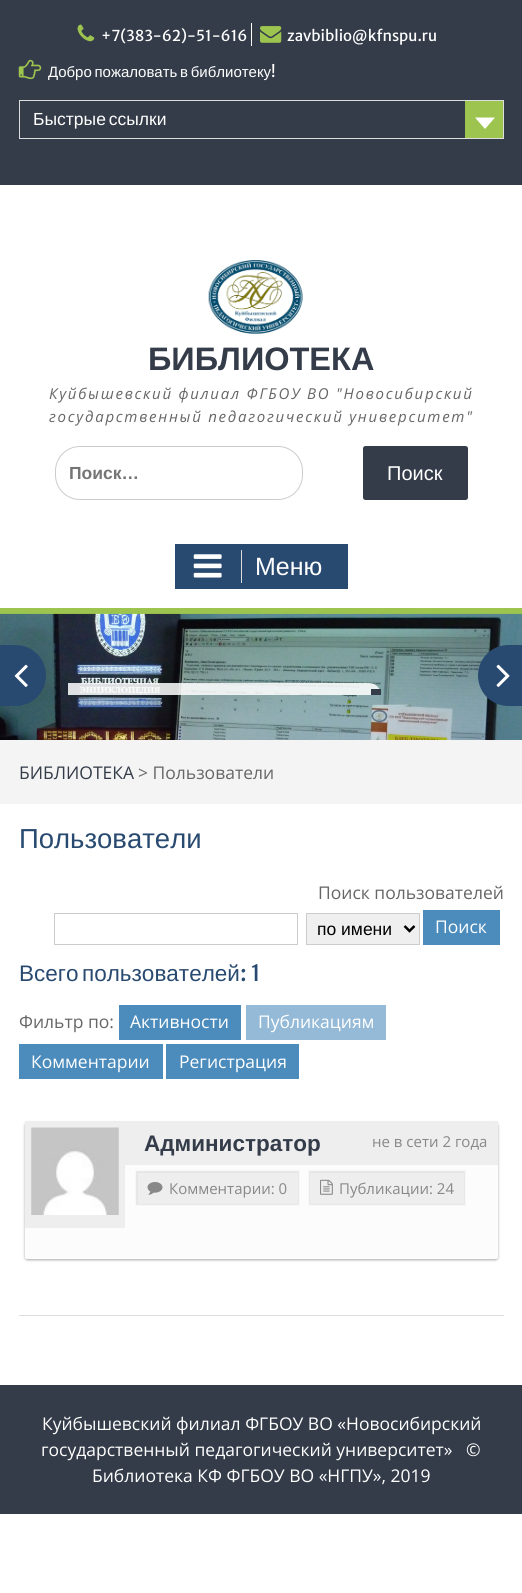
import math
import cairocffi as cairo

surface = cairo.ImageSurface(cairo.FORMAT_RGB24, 522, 1593)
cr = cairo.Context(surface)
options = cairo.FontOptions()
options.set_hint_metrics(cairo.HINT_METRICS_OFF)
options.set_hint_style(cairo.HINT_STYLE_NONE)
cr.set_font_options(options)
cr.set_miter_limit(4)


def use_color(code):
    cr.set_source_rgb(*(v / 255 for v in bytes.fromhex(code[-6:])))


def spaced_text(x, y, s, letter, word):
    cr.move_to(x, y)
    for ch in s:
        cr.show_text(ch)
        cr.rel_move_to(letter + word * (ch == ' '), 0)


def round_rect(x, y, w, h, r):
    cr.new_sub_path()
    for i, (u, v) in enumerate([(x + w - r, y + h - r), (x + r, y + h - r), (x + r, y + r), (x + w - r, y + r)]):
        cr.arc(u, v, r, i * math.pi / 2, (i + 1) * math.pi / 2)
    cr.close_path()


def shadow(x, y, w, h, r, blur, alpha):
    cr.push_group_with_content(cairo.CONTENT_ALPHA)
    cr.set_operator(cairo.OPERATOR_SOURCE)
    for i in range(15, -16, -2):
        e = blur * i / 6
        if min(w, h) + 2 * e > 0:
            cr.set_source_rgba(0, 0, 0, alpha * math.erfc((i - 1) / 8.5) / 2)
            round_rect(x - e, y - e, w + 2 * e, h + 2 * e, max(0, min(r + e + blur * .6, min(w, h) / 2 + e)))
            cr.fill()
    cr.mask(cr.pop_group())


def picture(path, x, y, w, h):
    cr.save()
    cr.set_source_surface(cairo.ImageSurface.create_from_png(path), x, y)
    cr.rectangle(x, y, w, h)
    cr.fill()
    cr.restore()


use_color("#ffffff")
cr.paint()
use_color("#343c49")
cr.rectangle(0, 0, 522, 185)
cr.fill()
picture("img1.png", 77, 24, 18, 18)
cr.select_font_face("Merriweather Sans")
cr.set_font_size(15)
use_color("#ffffff")
cr.move_to(101, 41)
cr.show_text("+7(383-62)-51-616")
cr.rectangle(251, 23, 1, 23)
cr.fill()
picture("img2.png", 260, 26, 22, 17)
cr.move_to(287, 41)
cr.show_text("zavbiblio@kfnspu.ru")
picture("img3.png", 18, 59, 24, 21)
cr.select_font_face("Liberation Sans")
spaced_text(48, 77, "Добро пожаловать в библиотеку", 0, -1.5)
cr.select_font_face("Merriweather Sans")
cr.move_to(271, 77)
cr.show_text("!")
cr.rectangle(19.5, 100.5, 484, 38)
use_color("#dddddd")
cr.set_line_width(1)
cr.stroke()
cr.select_font_face("Liberation Sans")
cr.set_font_size(17.5)
use_color("#ffffff")
spaced_text(33, 125, "Быстрые ссылки", 0, -2)
use_color("#9cc44e")
cr.rectangle(465, 101, 38, 37)
cr.fill()
use_color("#ffffff")
cr.new_path()
cr.move_to(475, 117.5)
cr.line_to(495, 117.5)
cr.line_to(485, 129)
cr.close_path()
cr.fill()
picture("img4.png", 208, 260, 95, 74)
cr.select_font_face("Liberation Sans", cairo.FONT_SLANT_NORMAL, cairo.FONT_WEIGHT_BOLD)
cr.set_font_size(32.5)
use_color("#343c49")
cr.move_to(148, 370)
cr.show_text("БИБЛИОТЕКА")
cr.select_font_face("Open Sans", cairo.FONT_SLANT_ITALIC)
cr.set_font_size(15)
use_color("#666666")
spaced_text(49, 399, "Куйбышевский филиал ФГБОУ ВО \"Новосибирский", 1.75, 0)
spaced_text(49, 422, "государственный педагогический университет\"", 1.75, 0)
round_rect(55.5, 446.5, 247, 53, 24.5)
use_color("#cccccc")
cr.stroke()
cr.select_font_face("Liberation Sans", cairo.FONT_SLANT_NORMAL, cairo.FONT_WEIGHT_BOLD)
cr.set_font_size(17.5)
use_color("#757575")
cr.move_to(69, 479)
cr.show_text("Поиск…")
use_color("#343c49")
round_rect(363, 446, 105, 54, 2.5)
cr.fill()
cr.select_font_face("Liberation Sans")
cr.set_font_size(20)
use_color("#ffffff")
cr.move_to(387, 480)
cr.show_text("Поиск")
use_color("#9cc44e")
cr.rectangle(0, 608, 522, 6)
cr.fill()
use_color("#294a70")
cr.rectangle(175, 544, 173, 45)
cr.fill()
use_color("#dddddd")
cr.rectangle(241, 550, 1, 33)
cr.fill()
picture("img5.png", 193, 554, 29, 24)
cr.set_font_size(25)
use_color("#ffffff")
cr.move_to(255, 575)
cr.show_text("Меню")
picture("img6.png", 0, 613, 522, 127)
use_color("#294a70")
cr.new_path()
cr.move_to(0, 645)
cr.line_to(15.5, 645)
cr.curve_to(32.5, 645, 46, 658.5, 46, 675.5)
cr.curve_to(46, 692.5, 32.5, 706, 15.5, 706)
cr.line_to(0, 706)
cr.close_path()
cr.fill()
picture("img7.png", 14, 664, 14, 23)
cr.set_source_rgba(1, 1, 1, 0.85)
cr.new_path()
cr.move_to(68, 683)
cr.line_to(369, 683)
cr.curve_to(375.5, 683, 381, 688.5, 381, 695)
cr.line_to(68, 695)
cr.close_path()
cr.fill()
use_color("#343c49")
cr.rectangle(371, 689, 10, 6)
cr.fill()
use_color("#294a70")
cr.new_path()
cr.move_to(508.5, 645)
cr.line_to(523, 645)
cr.line_to(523, 706)
cr.line_to(508.5, 706)
cr.curve_to(491.5, 706, 478, 692.5, 478, 675.5)
cr.curve_to(478, 658.5, 491.5, 645, 508.5, 645)
cr.close_path()
cr.fill()
picture("img8.png", 496, 664, 14, 23)
use_color("#f4f4f4")
cr.rectangle(0, 740, 522, 64)
cr.fill()
cr.select_font_face("Open Sans")
cr.set_font_size(17.5)
use_color("#343c49")
cr.move_to(19, 779)
cr.show_text("БИБЛИОТЕКА")
use_color("#666666")
cr.move_to(138, 779)
cr.show_text("> Пользователи")
use_color("#dddddd")
cr.rectangle(19, 1315, 485, 1)
cr.fill()
cr.select_font_face("Liberation Sans")
cr.set_font_size(27.5)
use_color("#294a70")
cr.move_to(19, 848)
cr.show_text("Пользователи")
cr.select_font_face("Open Sans")
cr.set_font_size(17.5)
use_color("#666666")
cr.move_to(318, 899)
cr.show_text("Поиск пользователей")
cr.rectangle(54.5, 913.5, 243, 31)
use_color("#cccccc")
cr.stroke()
use_color("#efefef")
cr.rectangle(306.5, 913.5, 113, 31)
cr.fill_preserve()
use_color("#cccccc")
cr.stroke()
cr.new_path()
cr.move_to(404.5, 926)
cr.line_to(409.5, 931)
cr.line_to(414.5, 926)
use_color("#000000")
cr.set_line_width(2.5)
cr.stroke()
cr.select_font_face("Liberation Sans")
cr.move_to(317, 935)
cr.show_text("по имени")
use_color("#4c8cbd")
cr.rectangle(423, 910, 77, 35)
cr.fill()
cr.select_font_face("Open Sans")
use_color("#ffffff")
cr.move_to(435, 933)
cr.show_text("Поиск")
cr.select_font_face("Liberation Sans")
cr.set_font_size(22.5)
use_color("#294a70")
cr.move_to(19, 981)
cr.show_text("Всего")
cr.move_to(82, 981)
cr.show_text("пользователей")
cr.select_font_face("Merriweather Sans")
cr.move_to(240, 981)
cr.show_text(": 1")
cr.select_font_face("Open Sans")
cr.set_font_size(17.5)
use_color("#666666")
cr.move_to(19, 1028)
cr.show_text("Фильтр по:")
use_color("#4c8cbd")
cr.rectangle(119, 1005, 122, 35)
cr.fill()
use_color("#ffffff")
cr.move_to(130, 1028)
cr.show_text("Активности")
use_color("#94bad7")
cr.rectangle(246, 1005, 140, 35)
cr.fill()
use_color("#ffffff")
cr.move_to(258, 1028)
cr.show_text("Публикациям")
use_color("#4c8cbd")
cr.rectangle(19, 1044, 144, 35)
cr.fill()
use_color("#ffffff")
cr.move_to(31, 1068)
cr.show_text("Комментарии")
use_color("#4c8cbd")
cr.rectangle(166, 1044, 133, 35)
cr.fill()
use_color("#ffffff")
cr.move_to(179, 1068)
cr.show_text("Регистрация")
cr.save()
cr.set_fill_rule(cairo.FILL_RULE_EVEN_ODD)
cr.new_path()
cr.move_to(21, 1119)
cr.line_to(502, 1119)
cr.line_to(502, 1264)
cr.line_to(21, 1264)
cr.close_path()
cr.move_to(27.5, 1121)
cr.line_to(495.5, 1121)
cr.curve_to(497, 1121, 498, 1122, 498, 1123.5)
cr.line_to(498, 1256.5)
cr.curve_to(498, 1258, 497, 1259, 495.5, 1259)
cr.line_to(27.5, 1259)
cr.curve_to(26, 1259, 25, 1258, 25, 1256.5)
cr.line_to(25, 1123.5)
cr.curve_to(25, 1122, 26, 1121, 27.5, 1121)
cr.close_path()
cr.clip()
use_color("#000000")
shadow(25, 1123, 473, 137, 2.5, 1, 0.24)
cr.restore()
cr.save()
cr.set_fill_rule(cairo.FILL_RULE_EVEN_ODD)
cr.new_path()
cr.move_to(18, 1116)
cr.line_to(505, 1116)
cr.line_to(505, 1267)
cr.line_to(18, 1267)
cr.close_path()
cr.move_to(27.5, 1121)
cr.line_to(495.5, 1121)
cr.curve_to(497, 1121, 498, 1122, 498, 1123.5)
cr.line_to(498, 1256.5)
cr.curve_to(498, 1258, 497, 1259, 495.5, 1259)
cr.line_to(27.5, 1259)
cr.curve_to(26, 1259, 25, 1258, 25, 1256.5)
cr.line_to(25, 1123.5)
cr.curve_to(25, 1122, 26, 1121, 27.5, 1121)
cr.close_path()
cr.clip()
use_color("#000000")
shadow(25, 1123, 473, 137, 2.5, 2, 0.12)
cr.restore()
cr.set_source_rgba(0.953, 0.953, 0.953, 0.3)
round_rect(25, 1121, 473, 138, 2.5)
cr.fill()
use_color("#eeeeee")
cr.rectangle(125, 1121, 373, 44)
cr.fill()
cr.select_font_face("Liberation Sans", cairo.FONT_SLANT_NORMAL, cairo.FONT_WEIGHT_BOLD)
cr.set_font_size(22.5)
use_color("#343c49")
cr.move_to(144, 1151)
cr.show_text("Администратор")
cr.select_font_face("Open Sans")
cr.set_font_size(15)
use_color("#888888")
cr.move_to(372, 1147)
cr.show_text("не в сети 2 года")
use_color("#eeeeee")
cr.rectangle(25, 1121, 100, 107)
cr.fill()
picture("img9.png", 31, 1127, 88, 88)
use_color("#dbdbdb")
shadow(136, 1171, 163, 34, 0, 0.5, 0.7)
use_color("#eeeeee")
cr.rectangle(138, 1173, 160, 31)
cr.fill()
picture("img10.png", 147, 1182, 16, 13)
use_color("#888888")
cr.move_to(169, 1194)
cr.show_text("Комментарии: 0")
use_color("#dbdbdb")
shadow(309, 1171, 156, 34, 0, 0.5, 0.7)
use_color("#eeeeee")
cr.rectangle(310, 1173, 154, 31)
cr.fill()
picture("img11.png", 320, 1179, 13, 16)
use_color("#888888")
cr.move_to(339, 1194)
cr.show_text("Публикации: 24")
use_color("#343c49")
cr.rectangle(0, 1385, 522, 129)
cr.fill()
cr.set_font_size(17.5)
use_color("#ffffff")
cr.move_to(42, 1430)
cr.show_text("Куйбышевский филиал ФГБОУ ВО «Новосибирский")
cr.move_to(41, 1456)
cr.show_text("государственный педагогический университет»   ©")
cr.move_to(92, 1482)
cr.show_text("Библиотека КФ ФГБОУ ВО «НГПУ», 2019")
surface.write_to_png("result.png")
